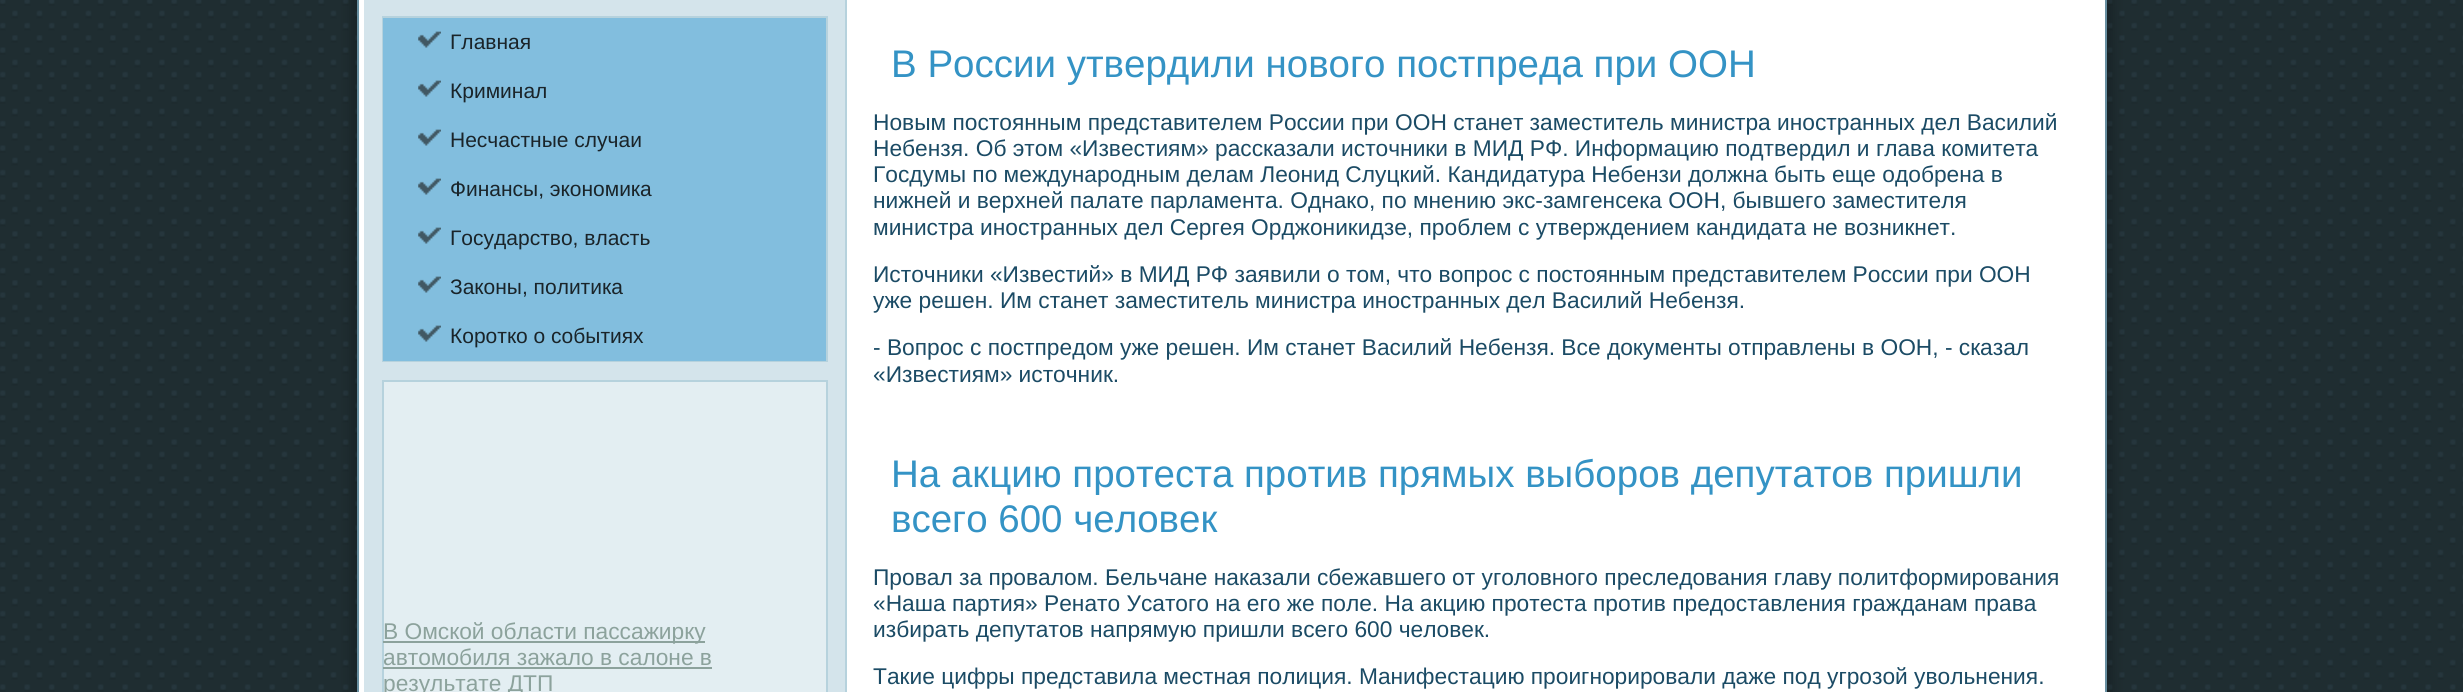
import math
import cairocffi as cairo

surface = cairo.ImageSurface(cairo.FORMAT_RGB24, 2463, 692)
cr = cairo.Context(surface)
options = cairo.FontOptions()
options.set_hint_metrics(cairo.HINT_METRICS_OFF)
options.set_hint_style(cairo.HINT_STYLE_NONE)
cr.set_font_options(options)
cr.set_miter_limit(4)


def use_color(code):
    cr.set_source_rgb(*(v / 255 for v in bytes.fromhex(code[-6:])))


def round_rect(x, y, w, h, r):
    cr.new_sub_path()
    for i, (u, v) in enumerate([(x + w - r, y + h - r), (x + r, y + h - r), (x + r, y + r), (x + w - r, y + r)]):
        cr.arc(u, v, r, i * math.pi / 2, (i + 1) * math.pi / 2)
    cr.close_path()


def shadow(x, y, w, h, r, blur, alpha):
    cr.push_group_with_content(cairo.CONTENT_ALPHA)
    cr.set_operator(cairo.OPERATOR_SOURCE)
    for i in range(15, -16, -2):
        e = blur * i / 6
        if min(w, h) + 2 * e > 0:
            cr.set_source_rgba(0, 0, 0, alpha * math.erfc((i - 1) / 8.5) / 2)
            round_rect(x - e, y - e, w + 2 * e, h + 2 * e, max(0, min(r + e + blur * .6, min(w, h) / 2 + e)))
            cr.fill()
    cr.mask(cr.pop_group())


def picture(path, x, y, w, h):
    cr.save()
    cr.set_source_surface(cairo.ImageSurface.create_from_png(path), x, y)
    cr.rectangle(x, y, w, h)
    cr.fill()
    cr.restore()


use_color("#212f35")
cr.paint()
picture("img1.png", 0, 0, 2463, 692)
use_color("#000000")
shadow(350, -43, 1764, 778, 25, 6, 0.2)
use_color("#ffffff")
cr.rectangle(359, 0, 1746, 692)
cr.fill()
use_color("#688fa1")
cr.set_fill_rule(cairo.FILL_RULE_EVEN_ODD)
cr.new_path()
cr.move_to(374, -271)
cr.line_to(2090, -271)
cr.curve_to(2099, -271, 2107, -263, 2107, -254)
cr.line_to(2107, 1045)
cr.line_to(357, 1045)
cr.line_to(357, -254)
cr.curve_to(357, -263, 365, -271, 374, -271)
cr.close_path()
cr.move_to(374, -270)
cr.line_to(2090, -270)
cr.curve_to(2098, -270, 2105, -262, 2105, -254)
cr.line_to(2105, 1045)
cr.line_to(359, 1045)
cr.line_to(359, -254)
cr.curve_to(359, -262, 366, -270, 374, -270)
cr.close_path()
cr.fill()
use_color("#d4e4eb")
cr.rectangle(364, 0, 481, 692)
cr.fill()
use_color("#b6d2dd")
cr.rectangle(845, 0, 2, 692)
cr.fill()
cr.rectangle(383, 17, 444, 344)
cr.stroke()
use_color("#82bede")
cr.rectangle(383, 18, 443, 343)
cr.fill()
picture("img2.png", 418, 31, 23, 17)
cr.select_font_face("Liberation Sans")
cr.set_font_size(21)
use_color("#1a2429")
cr.move_to(450, 49)
cr.show_text("Главная")
picture("img2.png", 418, 80, 23, 17)
cr.move_to(450, 98)
cr.show_text("Криминал")
picture("img2.png", 418, 129, 23, 17)
cr.move_to(450, 147)
cr.show_text("Несчастные случаи")
picture("img2.png", 418, 178, 23, 17)
cr.move_to(450, 196)
cr.show_text("Финансы, экономика")
picture("img2.png", 418, 227, 23, 17)
cr.move_to(450, 245)
cr.show_text("Государство, власть")
picture("img2.png", 418, 276, 23, 17)
cr.move_to(450, 294)
cr.show_text("Законы, политика")
picture("img2.png", 418, 325, 23, 17)
cr.move_to(450, 343)
cr.show_text("Коротко о событиях")
use_color("#e3eef2")
cr.rectangle(383, 381, 444, 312)
cr.fill_preserve()
use_color("#b6d2dd")
cr.stroke()
use_color("#8ca29c")
cr.rectangle(383, 641, 322, 2)
cr.fill()
cr.set_font_size(22.75)
cr.move_to(383, 639)
cr.show_text("В Омской области пассажирку")
cr.move_to(383, 665)
cr.show_text("автомобиля зажало в салоне в")
cr.rectangle(383, 667, 329, 2)
cr.fill()
cr.move_to(383, 691)
cr.show_text("результате ДТП")
cr.set_font_size(38.5)
use_color("#3493c5")
cr.move_to(891, 77)
cr.show_text("В России утвердили нового постпреда при ООН")
cr.set_font_size(22.75)
use_color("#1b4b65")
cr.move_to(873, 130)
cr.show_text("Новым постоянным представителем России при ООН станет заместитель министра иностранных дел Василий")
cr.move_to(873, 156)
cr.show_text("Небензя. Об этом «Известиям» рассказали источники в МИД РФ. Информацию подтвердил и глава комитета")
cr.move_to(873, 182)
cr.show_text("Госдумы по международным делам Леонид Слуцкий. Кандидатура Небензи должна быть еще одобрена в")
cr.move_to(873, 208)
cr.show_text("нижней и верхней палате парламента. Однако, по мнению экс-замгенсека ООН, бывшего заместителя")
cr.move_to(873, 235)
cr.show_text("министра иностранных дел Сергея Орджоникидзе, проблем с утверждением кандидата не возникнет.")
cr.move_to(873, 282)
cr.show_text("Источники «Известий» в МИД РФ заявили о том, что вопрос с постоянным представителем России при ООН")
cr.move_to(873, 308)
cr.show_text("уже решен. Им станет заместитель министра иностранных дел Василий Небензя.")
cr.move_to(873, 355)
cr.show_text("- Вопрос с постпредом уже решен. Им станет Василий Небензя. Все документы отправлены в ООН, - сказал")
cr.move_to(873, 382)
cr.show_text("«Известиям» источник.")
cr.set_font_size(38.5)
use_color("#3493c5")
cr.move_to(891, 487)
cr.show_text("На акцию протеста против прямых выборов депутатов пришли")
cr.move_to(891, 532)
cr.show_text("всего 600 человек")
cr.set_font_size(22.75)
use_color("#1b4b65")
cr.move_to(873, 585)
cr.show_text("Провал за провалом. Бельчане наказали сбежавшего от уголовного преследования главу политформирования")
cr.move_to(873, 611)
cr.show_text("«Наша партия» Ренато Усатого на его же поле. На акцию протеста против предоставления гражданам права")
cr.move_to(873, 637)
cr.show_text("избирать депутатов напрямую пришли всего 600 человек.")
cr.move_to(873, 684)
cr.show_text("Такие цифры представила местная полиция. Манифестацию проигнорировали даже под угрозой увольнения.")
surface.write_to_png("result.png")
